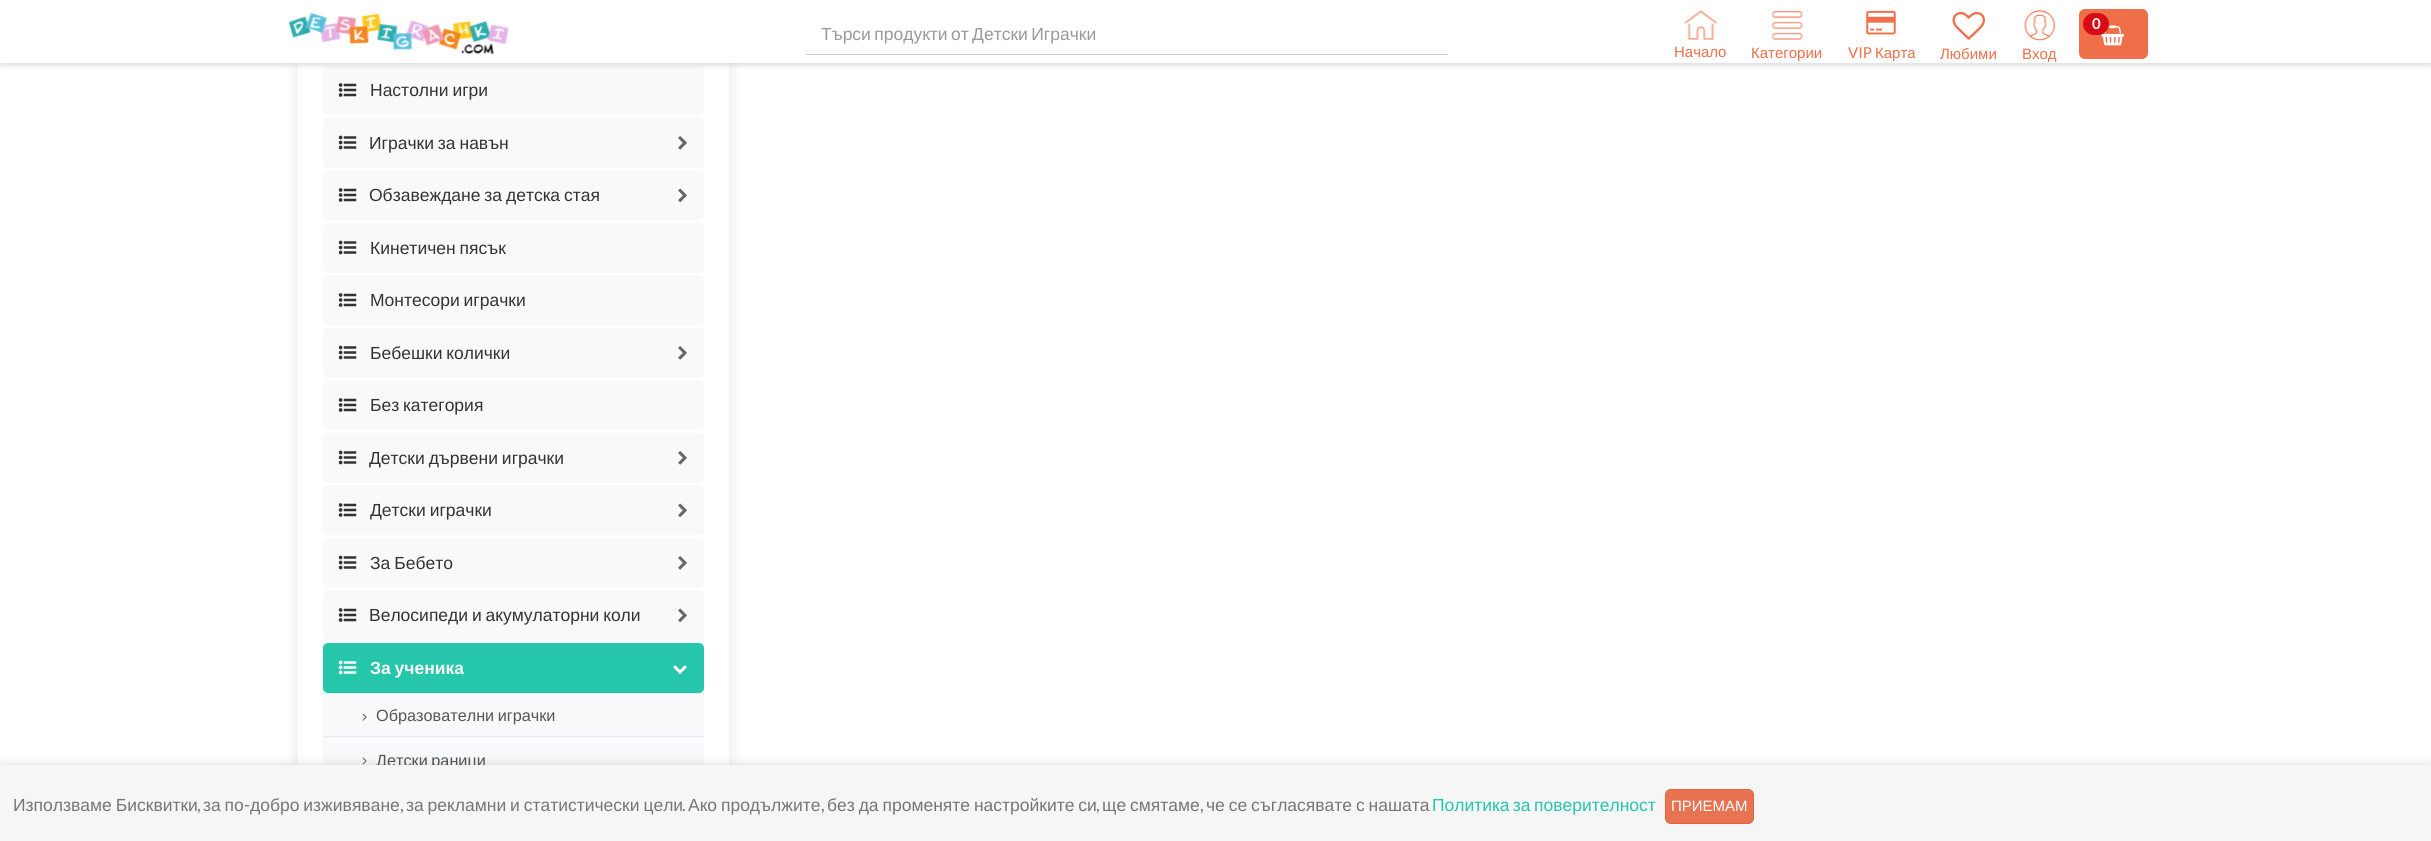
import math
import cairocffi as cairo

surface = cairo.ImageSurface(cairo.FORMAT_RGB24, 2431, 841)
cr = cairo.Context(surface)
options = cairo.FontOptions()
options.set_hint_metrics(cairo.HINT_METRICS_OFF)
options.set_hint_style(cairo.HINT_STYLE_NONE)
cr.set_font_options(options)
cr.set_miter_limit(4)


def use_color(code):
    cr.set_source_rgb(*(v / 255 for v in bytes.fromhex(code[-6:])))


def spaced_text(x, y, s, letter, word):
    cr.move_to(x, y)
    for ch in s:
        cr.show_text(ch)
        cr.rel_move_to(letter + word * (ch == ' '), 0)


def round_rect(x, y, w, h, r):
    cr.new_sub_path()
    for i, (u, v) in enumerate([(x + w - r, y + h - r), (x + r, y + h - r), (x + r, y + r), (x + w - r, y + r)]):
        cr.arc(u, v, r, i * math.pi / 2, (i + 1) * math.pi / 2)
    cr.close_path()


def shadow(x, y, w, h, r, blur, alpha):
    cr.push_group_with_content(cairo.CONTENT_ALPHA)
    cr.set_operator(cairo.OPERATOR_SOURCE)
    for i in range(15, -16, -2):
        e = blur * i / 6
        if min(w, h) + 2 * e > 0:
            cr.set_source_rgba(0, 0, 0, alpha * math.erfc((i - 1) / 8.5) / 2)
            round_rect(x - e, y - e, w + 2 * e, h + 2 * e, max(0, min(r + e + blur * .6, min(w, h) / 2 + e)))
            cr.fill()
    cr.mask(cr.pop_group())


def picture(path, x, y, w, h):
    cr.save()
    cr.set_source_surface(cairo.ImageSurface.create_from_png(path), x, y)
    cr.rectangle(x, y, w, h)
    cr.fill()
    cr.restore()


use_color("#ffffff")
cr.paint()
use_color("#000000")
shadow(298, -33, 431, 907, 10, 7.5, 0.1)
use_color("#ffffff")
cr.rectangle(298, 63, 431, 702)
cr.fill()
use_color("#f8f9fa")
round_rect(323, 65, 381, 50, 5)
cr.fill()
use_color("#000000")
shadow(0, 3, 2431, 62, 0, 2.5, 0.15)
use_color("#ffffff")
cr.rectangle(0, 0, 2431, 63)
cr.fill()
picture("img1.png", 288, 13, 221, 42)
use_color("#cccccc")
cr.rectangle(806, 54, 642, 1)
cr.fill()
cr.select_font_face("Liberation Sans")
cr.set_font_size(17.5)
use_color("#999999")
spaced_text(821, 40, "Търси продукти от Детски Играчки", 0, -1.5)
use_color("#ef6f49")
round_rect(2079, 9, 69, 50, 6)
cr.fill()
picture("img2.png", 2101, 25, 24, 21)
use_color("#d90a13")
round_rect(2083, 13, 26, 22, 11)
cr.fill()
cr.select_font_face("Lato", cairo.FONT_SLANT_NORMAL, cairo.FONT_WEIGHT_BOLD)
cr.set_font_size(15)
use_color("#ffffff")
cr.move_to(2092, 29)
cr.show_text("0")
picture("img3.png", 1684, 10, 34, 30)
cr.select_font_face("Liberation Sans")
use_color("#ef6f49")
cr.move_to(1674, 57)
cr.show_text("Начало")
picture("img4.png", 1771, 10, 32, 30)
cr.move_to(1751, 58)
cr.show_text("Категории")
picture("img5.png", 1866, 10, 30, 25)
cr.select_font_face("Lato")
cr.move_to(1848, 58)
cr.show_text("VIP")
cr.select_font_face("Liberation Sans")
cr.move_to(1875, 58)
cr.show_text("Карта")
picture("img6.png", 1952, 12, 33, 28)
cr.move_to(1940, 59)
cr.show_text("Любими")
picture("img7.png", 2024, 10, 32, 31)
cr.move_to(2022, 59)
cr.show_text("Вход")
picture("img8.png", 338, 83, 19, 14)
cr.set_font_size(17.5)
use_color("#333333")
spaced_text(370, 96, "Настолни игри", 0, -1)
use_color("#f8f9fa")
round_rect(323, 118, 381, 50, 5)
cr.fill()
picture("img9.png", 338, 135, 19, 15)
use_color("#333333")
spaced_text(369, 149, "Играчки за навън", 0, -1)
picture("img10.png", 678, 136, 9, 14)
use_color("#f8f9fa")
round_rect(323, 170, 381, 50, 5)
cr.fill()
picture("img8.png", 338, 188, 19, 14)
use_color("#333333")
spaced_text(369, 201, "Обзавеждане за детска стая", 0, -1)
picture("img11.png", 678, 188, 9, 14)
use_color("#f8f9fa")
round_rect(323, 223, 381, 50, 5)
cr.fill()
picture("img9.png", 338, 240, 19, 15)
use_color("#333333")
spaced_text(370, 254, "Кинетичен пясък", 0, -1)
use_color("#f8f9fa")
round_rect(323, 275, 381, 50, 5)
cr.fill()
picture("img8.png", 338, 293, 19, 14)
use_color("#333333")
spaced_text(370, 306, "Монтесори играчки", 0, -1)
use_color("#f8f9fa")
round_rect(323, 328, 381, 50, 5)
cr.fill()
picture("img9.png", 338, 345, 19, 15)
use_color("#333333")
spaced_text(370, 359, "Бебешки колички", 0, -1)
picture("img10.png", 678, 346, 9, 14)
use_color("#f8f9fa")
round_rect(323, 380, 381, 50, 5)
cr.fill()
picture("img8.png", 338, 398, 19, 14)
use_color("#333333")
spaced_text(370, 411, "Без категория", 0, -1)
use_color("#f8f9fa")
round_rect(323, 433, 381, 50, 5)
cr.fill()
picture("img9.png", 338, 450, 19, 15)
use_color("#333333")
spaced_text(369, 464, "Детски дървени играчки", 0, -1)
picture("img10.png", 678, 451, 9, 14)
use_color("#f8f9fa")
round_rect(323, 485, 381, 50, 5)
cr.fill()
picture("img8.png", 338, 503, 19, 14)
use_color("#333333")
spaced_text(370, 516, "Детски играчки", 0, -1)
picture("img11.png", 678, 503, 9, 14)
use_color("#f8f9fa")
round_rect(323, 538, 381, 50, 5)
cr.fill()
picture("img9.png", 338, 555, 19, 15)
use_color("#333333")
spaced_text(370, 569, "За Бебето", 0, -1)
picture("img10.png", 678, 556, 9, 14)
use_color("#f8f9fa")
round_rect(323, 590, 381, 50, 5)
cr.fill()
picture("img8.png", 338, 608, 19, 14)
use_color("#333333")
spaced_text(369, 621, "Велосипеди и акумулаторни коли", 0, -1)
picture("img11.png", 678, 608, 9, 14)
use_color("#26c6ab")
round_rect(323, 643, 381, 50, 5)
cr.fill()
picture("img12.png", 338, 660, 19, 15)
cr.select_font_face("Liberation Sans", cairo.FONT_SLANT_NORMAL, cairo.FONT_WEIGHT_BOLD)
use_color("#ffffff")
spaced_text(370, 674, "За ученика", 0, -1)
picture("img13.png", 673, 665, 14, 9)
use_color("#f8f9fa")
cr.rectangle(323, 694, 381, 71)
cr.fill()
use_color("#e9ecef")
cr.rectangle(323, 693, 381, 1)
cr.fill()
picture("img14.png", 362, 713, 5, 8)
cr.select_font_face("Liberation Sans")
cr.set_font_size(16.25)
use_color("#555555")
spaced_text(376, 721, "Образователни играчки", 0, -1)
use_color("#e9ecef")
cr.rectangle(323, 736, 381, 1)
cr.fill()
picture("img15.png", 362, 757, 5, 8)
use_color("#555555")
spaced_text(376, 766, "Детски раници", 0, -1)
use_color("#000000")
shadow(0, 765, 2431, 76, 0, 5, 0.15)
use_color("#f6f6f6")
cr.rectangle(0, 765, 2431, 76)
cr.fill()
cr.set_font_size(17.5)
use_color("#767676")
spaced_text(13, 811, "Използваме Бисквитки", 0, -1)
spaced_text(203, 811, "за по", 0, -1)
cr.select_font_face("Lato")
cr.move_to(244, 811)
cr.show_text("-")
cr.select_font_face("Liberation Sans")
spaced_text(250, 811, "добро изживяване", 0, -1)
spaced_text(406, 811, "за рекламни и статистически цели", 0, -1)
spaced_text(688, 811, "Ако продължите", 0, -1)
spaced_text(827, 811, "без да променяте настройките си", 0, -1)
spaced_text(1102, 811, "ще смятаме", 0, -1)
spaced_text(1206, 811, "че се съгласявате с нашата", 0, -1)
use_color("#26c6ab")
spaced_text(1432, 811, "Политика за поверителност", 0, -1.5)
use_color("#e87352")
round_rect(1665.5, 789.5, 88, 34, 5.5)
cr.fill_preserve()
use_color("#e5613b")
cr.set_line_width(1)
cr.stroke()
cr.set_font_size(15)
use_color("#ffffff")
cr.move_to(1671, 811)
cr.show_text("ПРИЕМАМ")
cr.select_font_face("Lato")
cr.set_font_size(17.5)
use_color("#767676")
cr.move_to(197, 811)
cr.show_text(",")
cr.move_to(400, 811)
cr.show_text(",")
cr.move_to(682, 811)
cr.show_text(".")
cr.move_to(821, 811)
cr.show_text(",")
cr.move_to(1096, 811)
cr.show_text(",")
cr.move_to(1200, 811)
cr.show_text(",")
surface.write_to_png("result.png")
